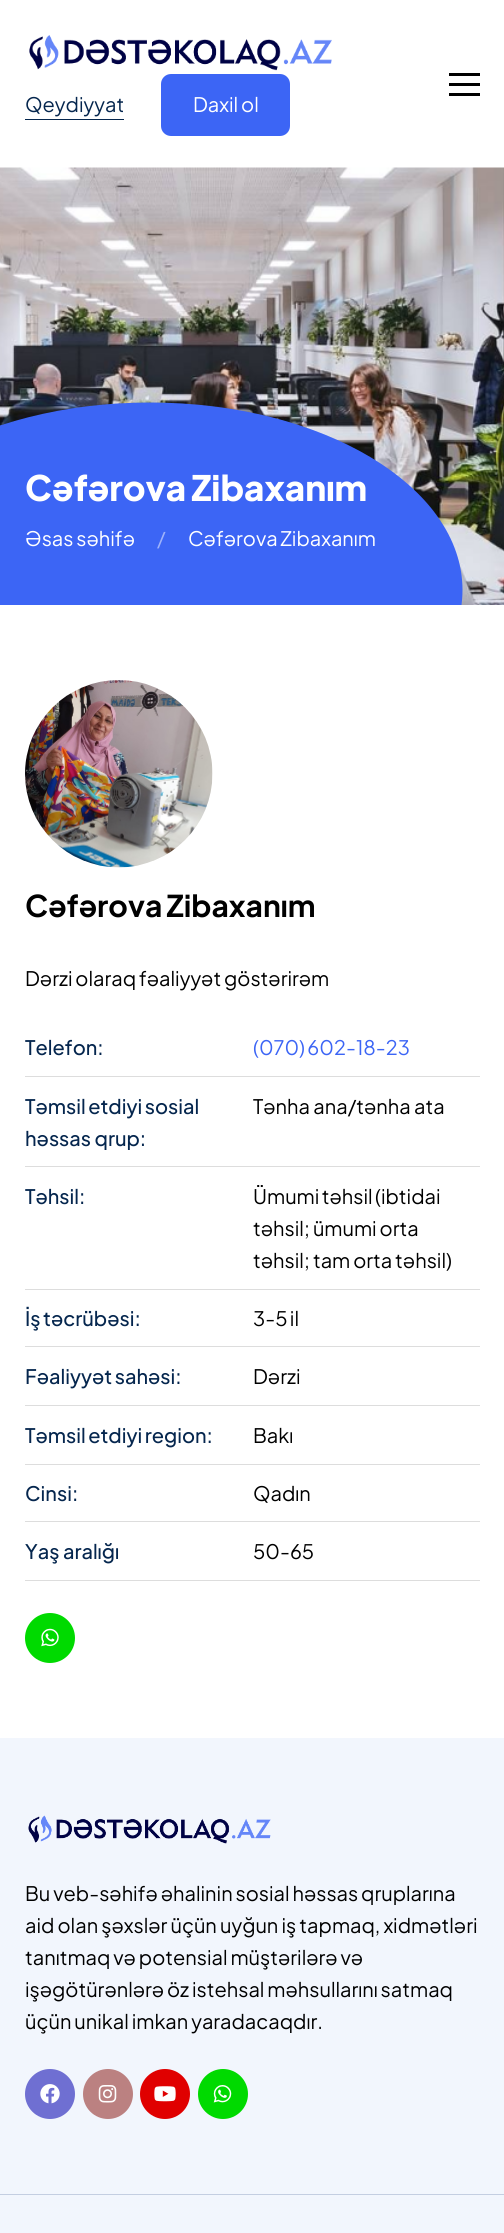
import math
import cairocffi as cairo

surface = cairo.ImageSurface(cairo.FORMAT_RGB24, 504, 2233)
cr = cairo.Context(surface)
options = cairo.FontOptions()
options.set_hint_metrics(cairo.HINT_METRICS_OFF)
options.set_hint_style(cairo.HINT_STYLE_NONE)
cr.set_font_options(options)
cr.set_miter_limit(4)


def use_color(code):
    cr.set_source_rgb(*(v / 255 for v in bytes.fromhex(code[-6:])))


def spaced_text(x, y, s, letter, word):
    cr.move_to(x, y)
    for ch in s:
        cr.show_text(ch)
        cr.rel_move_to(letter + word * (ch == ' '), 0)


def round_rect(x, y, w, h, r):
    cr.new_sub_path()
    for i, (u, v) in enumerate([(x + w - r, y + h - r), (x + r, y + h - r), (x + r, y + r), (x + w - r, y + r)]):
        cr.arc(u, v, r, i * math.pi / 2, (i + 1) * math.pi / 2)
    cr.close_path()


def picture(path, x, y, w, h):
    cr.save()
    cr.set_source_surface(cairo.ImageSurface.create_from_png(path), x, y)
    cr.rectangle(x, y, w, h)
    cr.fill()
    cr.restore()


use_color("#ffffff")
cr.paint()
picture("img1.png", 29, 35, 303, 36)
use_color("#000000")
cr.rectangle(449, 73, 31, 3)
cr.fill()
cr.rectangle(449, 83, 31, 3)
cr.fill()
cr.rectangle(449, 93, 31, 3)
cr.fill()
cr.select_font_face("Plus Jakarta Sans")
cr.set_font_size(20)
use_color("#05264e")
cr.move_to(25, 112)
cr.show_text("Qeydiyyat")
cr.rectangle(25, 119, 99, 1)
cr.fill()
use_color("#3c65f5")
round_rect(161, 74, 129, 62, 10)
cr.fill()
use_color("#ffffff")
spaced_text(193, 112, "Daxil ol", 0, -0.5)
picture("img2.png", 0, 167, 504, 438)
cr.save()
cr.rectangle(0, 168, 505, 437)
cr.clip()
use_color("#3c65f5")
cr.new_path()
cr.move_to(150, 402.5)
cr.curve_to(322.5, 402.5, 462.5, 486.5, 462.5, 590)
cr.curve_to(462.5, 693.5, 322.5, 777.5, 150, 777.5)
cr.curve_to(-22.5, 777.5, -162.5, 693.5, -162.5, 590)
cr.curve_to(-162.5, 486.5, -22.5, 402.5, 150, 402.5)
cr.close_path()
cr.fill()
cr.restore()
cr.select_font_face("Plus Jakarta Sans ExtraBold")
cr.set_font_size(35)
spaced_text(25, 501, "Cəfərova Zibaxanım", 0, -1)
cr.select_font_face("Plus Jakarta Sans")
cr.set_font_size(20)
spaced_text(25, 546, "Əsas səhifə", 0, -0.5)
use_color("#9eb2fa")
cr.move_to(157, 546)
cr.show_text("/")
use_color("#ffffff")
spaced_text(188, 546, "Cəfərova Zibaxanım", 0, -1)
picture("img3.png", 25, 680, 188, 188)
cr.select_font_face("Plus Jakarta Sans", cairo.FONT_SLANT_NORMAL, cairo.FONT_WEIGHT_BOLD)
cr.set_font_size(30)
use_color("#000000")
spaced_text(25, 917, "Cəfərova Zibaxanım", 0, -1)
cr.select_font_face("Plus Jakarta Sans")
cr.set_font_size(20)
spaced_text(25, 986, "Dərzi olaraq fəaliyyət göstərirəm", 0, -0.5)
use_color("#dddddd")
cr.rectangle(25, 1076, 455, 1)
cr.fill()
cr.select_font_face("Plus Jakarta Sans Medium")
use_color("#05264e")
cr.move_to(25, 1055)
cr.show_text("Telefon:")
cr.select_font_face("Plus Jakarta Sans")
use_color("#3c65f5")
spaced_text(253, 1055, "(070) 602-18-23", 0, -1)
use_color("#dddddd")
cr.rectangle(25, 1166, 455, 1)
cr.fill()
cr.select_font_face("Plus Jakarta Sans Medium")
use_color("#05264e")
spaced_text(25, 1114, "Təmsil etdiyi sosial", 0, -1)
cr.move_to(25, 1146)
cr.show_text("həssas qrup:")
cr.select_font_face("Plus Jakarta Sans")
use_color("#000000")
cr.move_to(253, 1114)
cr.show_text("Tənha ana/tənha ata")
use_color("#dddddd")
cr.rectangle(25, 1289, 455, 1)
cr.fill()
cr.select_font_face("Plus Jakarta Sans Medium")
use_color("#05264e")
cr.move_to(25, 1204)
cr.show_text("Təhsil:")
cr.select_font_face("Plus Jakarta Sans")
use_color("#000000")
spaced_text(253, 1204, "Ümumi təhsil (ibtidai", 0, -1)
spaced_text(253, 1236, "təhsil; ümumi orta", 0, -0.5)
spaced_text(253, 1268, "təhsil; tam orta təhsil)", 0, -0.5)
use_color("#dddddd")
cr.rectangle(25, 1346, 455, 1)
cr.fill()
cr.select_font_face("Plus Jakarta Sans Medium")
use_color("#05264e")
spaced_text(25, 1326, "İş təcrübəsi:", 0, -1)
cr.select_font_face("Plus Jakarta Sans")
use_color("#000000")
spaced_text(253, 1326, "3-5 il", 0, -1)
use_color("#dddddd")
cr.rectangle(25, 1405, 455, 1)
cr.fill()
cr.select_font_face("Plus Jakarta Sans Medium")
use_color("#05264e")
spaced_text(25, 1384, "Fəaliyyət sahəsi:", 0, -1)
cr.select_font_face("Plus Jakarta Sans")
use_color("#000000")
cr.move_to(253, 1384)
cr.show_text("Dərzi")
use_color("#dddddd")
cr.rectangle(25, 1464, 455, 1)
cr.fill()
cr.select_font_face("Plus Jakarta Sans Medium")
use_color("#05264e")
spaced_text(25, 1443, "Təmsil etdiyi region:", 0, -1)
cr.select_font_face("Plus Jakarta Sans")
use_color("#000000")
cr.move_to(253, 1443)
cr.show_text("Bakı")
use_color("#dddddd")
cr.rectangle(25, 1521, 455, 1)
cr.fill()
cr.select_font_face("Plus Jakarta Sans Medium")
use_color("#05264e")
cr.move_to(25, 1501)
cr.show_text("Cinsi:")
cr.select_font_face("Plus Jakarta Sans")
use_color("#000000")
cr.move_to(253, 1501)
cr.show_text("Qadın")
use_color("#dddddd")
cr.rectangle(25, 1580, 455, 1)
cr.fill()
cr.select_font_face("Plus Jakarta Sans Medium")
use_color("#05264e")
cr.move_to(25, 1559)
cr.show_text("Yaş aralığı")
cr.select_font_face("Plus Jakarta Sans")
use_color("#000000")
cr.move_to(253, 1559)
cr.show_text("50-65")
use_color("#00da00")
cr.new_path()
cr.arc(50, 1638, 25, 0, 2 * math.pi)
cr.fill()
picture("img4.png", 41, 1628, 18, 19)
use_color("#f2f6fd")
cr.rectangle(0, 1738, 504, 495)
cr.fill()
picture("img5.png", 28, 1815, 243, 29)
use_color("#000000")
spaced_text(25, 1901, "Bu veb-səhifə əhalinin sosial həssas qruplarına", 0, -0.5)
spaced_text(25, 1933, "aid olan şəxslər üçün uyğun iş tapmaq, xidmətləri", 0, -0.25)
spaced_text(25, 1965, "tanıtmaq və potensial müştərilərə və", 0, -0.5)
spaced_text(25, 1997, "işəgötürənlərə öz istehsal məhsullarını satmaq", 0, -0.5)
spaced_text(25, 2029, "üçün unikal imkan yaradacaqdır.", 0, -0.5)
use_color("#6f6fd2")
cr.new_path()
cr.arc(50, 2094, 25, 0, 2 * math.pi)
cr.fill()
picture("img6.png", 40, 2084, 20, 20)
use_color("#bb8181")
cr.arc(108, 2094, 25, 0, 2 * math.pi)
cr.fill()
picture("img7.png", 98, 2085, 19, 18)
use_color("#e00000")
cr.arc(165, 2094, 25, 0, 2 * math.pi)
cr.fill()
picture("img8.png", 154, 2086, 22, 16)
use_color("#00da00")
cr.arc(223, 2094, 25, 0, 2 * math.pi)
cr.fill()
picture("img9.png", 213, 2085, 19, 18)
use_color("#c4cee1")
cr.rectangle(0, 2194, 504, 1)
cr.fill()
surface.write_to_png("result.png")
